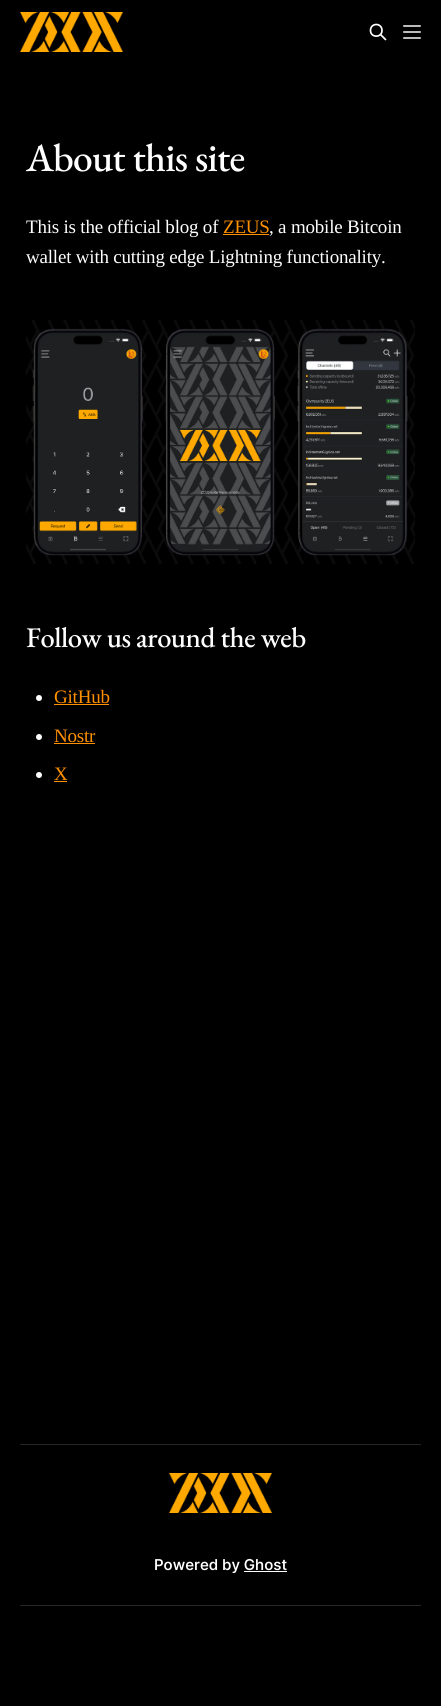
import math
import cairocffi as cairo

surface = cairo.ImageSurface(cairo.FORMAT_RGB24, 441, 1706)
cr = cairo.Context(surface)
options = cairo.FontOptions()
options.set_hint_metrics(cairo.HINT_METRICS_OFF)
options.set_hint_style(cairo.HINT_STYLE_NONE)
cr.set_font_options(options)
cr.set_miter_limit(4)


def use_color(code):
    cr.set_source_rgb(*(v / 255 for v in bytes.fromhex(code[-6:])))


def spaced_text(x, y, s, letter, word):
    cr.move_to(x, y)
    for ch in s:
        cr.show_text(ch)
        cr.rel_move_to(letter + word * (ch == ' '), 0)


def picture(path, x, y, w, h):
    cr.save()
    cr.set_source_surface(cairo.ImageSurface.create_from_png(path), x, y)
    cr.rectangle(x, y, w, h)
    cr.fill()
    cr.restore()


use_color("#000000")
cr.paint()
picture("img1.png", 20, 12, 103, 40)
cr.new_path()
cr.move_to(385.5, 39.5)
cr.line_to(380.5, 34.5)
cr.move_to(382, 30.5)
cr.curve_to(382, 38, 370.5, 38, 370.5, 30.5)
cr.curve_to(370.5, 22.5, 382, 22.5, 382, 30.5)
cr.close_path()
use_color("#ffffff")
cr.set_line_width(1.7)
cr.set_line_cap(cairo.LINE_CAP_ROUND)
cr.set_line_join(cairo.LINE_JOIN_ROUND)
cr.stroke()
picture("img2.png", 403, 25, 18, 14)
cr.select_font_face("EB Garamond Medium")
cr.set_font_size(39.5)
spaced_text(26, 171, "About this site", -0.75, 0)
cr.select_font_face("Liberation Serif")
cr.set_font_size(19)
spaced_text(26, 233, "This is the official blog of", -0.2, 0)
use_color("#ff9000")
spaced_text(223, 233, "ZEUS", -0.2, 0)
cr.rectangle(223, 234, 46, 1)
cr.fill()
use_color("#ffffff")
spaced_text(269, 233, ", a mobile Bitcoin", -0.2, 0)
spaced_text(26, 263, "wallet with cutting edge Lightning functionality.", -0.2, 0)
picture("img3.png", 26, 320, 389, 244)
cr.select_font_face("EB Garamond Medium")
cr.set_font_size(28.5)
spaced_text(26, 647, "Follow us around the web", -0.5, 0)
cr.new_path()
cr.arc(39, 698, 3, 0, 2 * math.pi)
cr.fill()
cr.select_font_face("Liberation Serif")
cr.set_font_size(19)
use_color("#ff9000")
spaced_text(54, 703, "GitHub", -0.2, 0)
cr.rectangle(54, 704, 55, 1)
cr.fill()
use_color("#ffffff")
cr.arc(39, 737, 3, 0, 2 * math.pi)
cr.fill()
use_color("#ff9000")
spaced_text(54, 742, "Nostr", -0.2, 0)
cr.rectangle(54, 743, 41, 1)
cr.fill()
use_color("#ffffff")
cr.arc(39, 775, 3, 0, 2 * math.pi)
cr.fill()
use_color("#ff9000")
spaced_text(54, 780, "X", -0.2, 0)
cr.rectangle(54, 781, 13, 1)
cr.fill()
use_color("#262626")
cr.rectangle(20, 1444, 401, 1)
cr.fill()
cr.rectangle(20, 1605, 401, 1)
cr.fill()
picture("img4.png", 169, 1473, 103, 40)
cr.select_font_face("Inter Medium")
cr.set_font_size(15)
use_color("#ffffff")
cr.move_to(154, 1570)
cr.show_text("Powered by Ghost")
cr.rectangle(244, 1571, 43, 1)
cr.fill()
surface.write_to_png("result.png")
